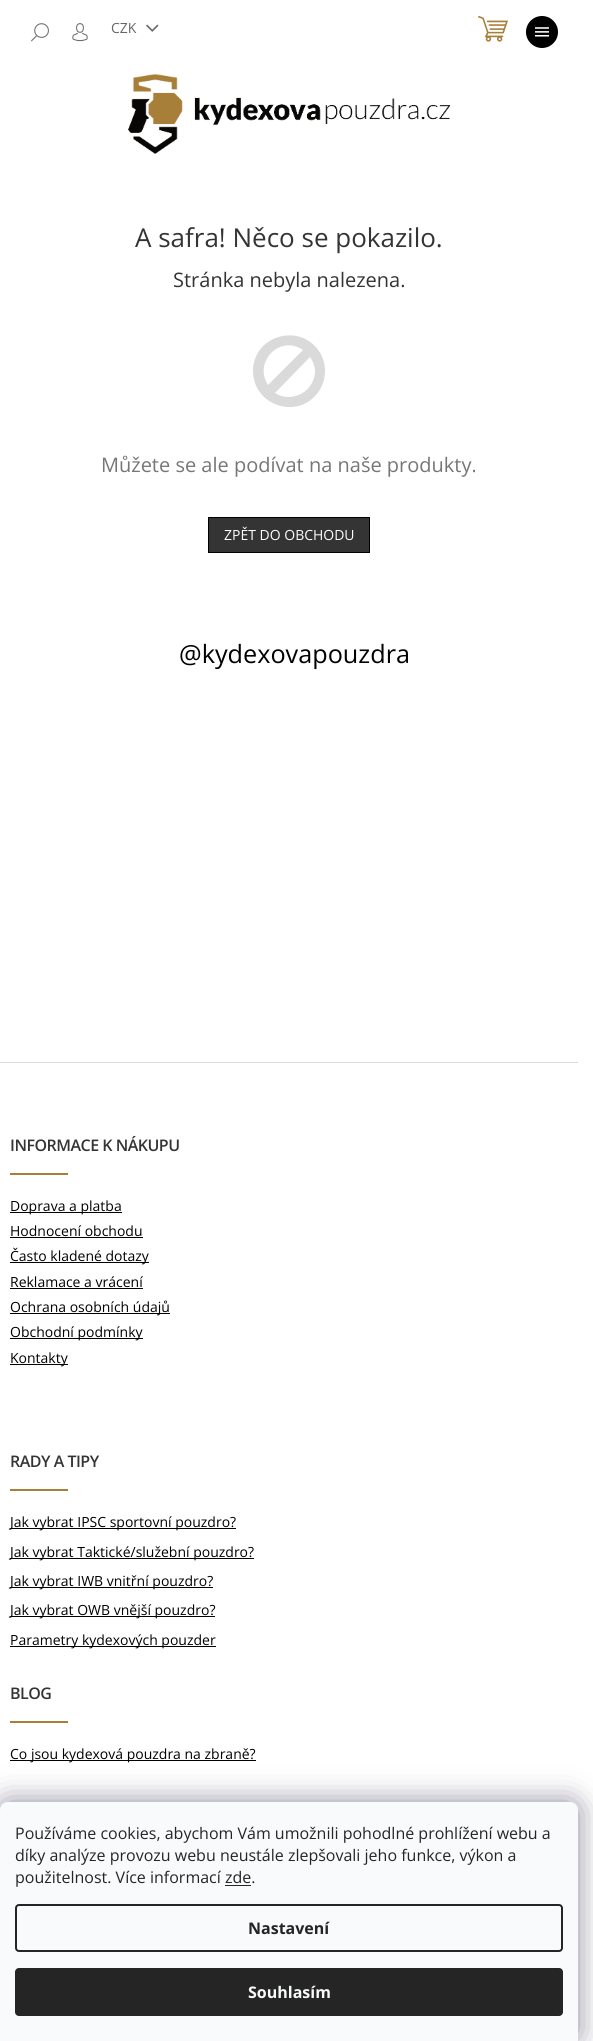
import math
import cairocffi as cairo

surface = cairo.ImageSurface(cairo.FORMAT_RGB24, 593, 2041)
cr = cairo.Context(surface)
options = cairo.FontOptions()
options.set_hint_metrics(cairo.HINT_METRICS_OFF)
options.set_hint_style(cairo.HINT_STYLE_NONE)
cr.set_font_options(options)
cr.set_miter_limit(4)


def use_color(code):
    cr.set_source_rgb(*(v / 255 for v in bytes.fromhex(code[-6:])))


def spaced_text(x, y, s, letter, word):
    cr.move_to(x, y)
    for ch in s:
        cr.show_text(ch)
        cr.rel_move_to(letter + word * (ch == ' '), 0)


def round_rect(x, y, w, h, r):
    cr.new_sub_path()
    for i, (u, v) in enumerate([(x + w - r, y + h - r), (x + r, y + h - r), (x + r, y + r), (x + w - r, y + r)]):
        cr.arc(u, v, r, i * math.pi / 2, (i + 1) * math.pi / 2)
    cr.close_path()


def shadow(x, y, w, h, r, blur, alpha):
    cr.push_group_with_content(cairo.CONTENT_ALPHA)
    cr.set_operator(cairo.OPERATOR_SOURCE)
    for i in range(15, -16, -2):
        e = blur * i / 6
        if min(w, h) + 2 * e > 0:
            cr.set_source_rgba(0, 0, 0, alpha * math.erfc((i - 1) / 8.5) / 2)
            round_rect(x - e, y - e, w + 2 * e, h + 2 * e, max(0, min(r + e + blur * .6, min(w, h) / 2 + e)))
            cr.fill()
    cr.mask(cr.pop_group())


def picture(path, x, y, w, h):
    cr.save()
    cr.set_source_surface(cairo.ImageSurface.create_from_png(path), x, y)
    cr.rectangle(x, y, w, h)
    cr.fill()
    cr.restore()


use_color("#ffffff")
cr.paint()
picture("img1.png", 31, 23, 18, 19)
picture("img2.png", 72, 23, 16, 19)
use_color("#000000")
cr.arc(542, 32, 16, 0, 2 * math.pi)
cr.fill()
picture("img3.png", 535, 27, 14, 10)
cr.select_font_face("Open Sans")
cr.set_font_size(14)
use_color("#666666")
cr.move_to(111, 33)
cr.show_text("CZK")
picture("img4.png", 146, 24, 13, 8)
picture("img5.png", 478, 16, 30, 26)
picture("img6.png", 128, 74, 322, 80)
cr.set_font_size(26)
use_color("#343434")
cr.move_to(135, 247)
cr.show_text("A safra! Něco se pokazilo.")
cr.set_font_size(20)
cr.move_to(173, 287)
cr.show_text("Stránka nebyla nalezena.")
use_color("#dadada")
cr.new_path()
cr.move_to(315, 371)
cr.curve_to(315, 366, 313, 361, 310, 357)
cr.line_to(275, 393)
cr.curve_to(292, 404, 315, 391, 315, 371)
cr.close_path()
cr.move_to(268, 385)
cr.line_to(303, 350)
cr.curve_to(280, 334, 253, 362, 268, 385)
cr.close_path()
cr.move_to(325, 371)
cr.curve_to(325, 378, 323, 385, 319, 391)
cr.curve_to(299, 421, 253, 406, 253, 371)
cr.curve_to(253, 336, 299, 322, 319, 351)
cr.curve_to(323, 357, 325, 364, 325, 371)
cr.close_path()
cr.fill()
use_color("#767676")
cr.move_to(101, 472)
cr.show_text("Můžete se ale podívat na naše produkty.")
use_color("#343434")
cr.rectangle(208.5, 517.5, 161, 35)
cr.fill_preserve()
use_color("#000000")
cr.set_line_width(1)
cr.stroke()
cr.set_font_size(14)
use_color("#ffffff")
cr.move_to(224, 540)
cr.show_text("ZPĚT DO OBCHODU")
cr.set_font_size(25.25)
use_color("#000000")
cr.move_to(179, 663)
cr.show_text("@kydexovapouzdra")
use_color("#dadada")
cr.rectangle(0, 1062, 578, 1)
cr.fill()
cr.select_font_face("Open Sans SemiBold")
cr.set_font_size(16)
use_color("#343434")
spaced_text(10, 1151, "INFORMACE K NÁKUPU", -0.5, 0)
use_color("#a67f3c")
cr.rectangle(10, 1173, 58, 2)
cr.fill()
use_color("#000000")
cr.rectangle(10, 1212, 112, 1)
cr.fill()
cr.select_font_face("Open Sans")
cr.set_font_size(14)
cr.move_to(10, 1211)
cr.show_text("Doprava a platba")
cr.move_to(10, 1236)
cr.show_text("Hodnocení obchodu")
cr.rectangle(10, 1237, 133, 1)
cr.fill()
cr.rectangle(10, 1262, 139, 1)
cr.fill()
cr.move_to(10, 1261)
cr.show_text("Často kladené dotazy")
cr.move_to(10, 1287)
cr.show_text("Reklamace a vrácení")
cr.rectangle(10, 1288, 133, 1)
cr.fill()
cr.rectangle(10, 1313, 160, 1)
cr.fill()
cr.move_to(10, 1312)
cr.show_text("Ochrana osobních údajů")
cr.rectangle(10, 1338, 133, 1)
cr.fill()
cr.move_to(10, 1337)
cr.show_text("Obchodní podmínky")
cr.rectangle(10, 1364, 58, 1)
cr.fill()
cr.move_to(10, 1363)
cr.show_text("Kontakty")
cr.select_font_face("Open Sans SemiBold")
cr.set_font_size(16)
use_color("#343434")
spaced_text(10, 1467, "RADY A TIPY", -0.5, 0)
use_color("#a67f3c")
cr.rectangle(10, 1489, 58, 2)
cr.fill()
use_color("#000000")
cr.rectangle(10, 1528, 226, 1)
cr.fill()
cr.select_font_face("Open Sans")
cr.set_font_size(14)
cr.move_to(10, 1527)
cr.show_text("Jak vybrat IPSC sportovní pouzdro?")
cr.rectangle(10, 1558, 244, 1)
cr.fill()
cr.move_to(10, 1557)
cr.show_text("Jak vybrat Taktické/služební pouzdro?")
cr.rectangle(10, 1587, 203, 1)
cr.fill()
cr.move_to(10, 1586)
cr.show_text("Jak vybrat IWB vnitřní pouzdro?")
cr.rectangle(10, 1616, 205, 1)
cr.fill()
cr.move_to(10, 1615)
cr.show_text("Jak vybrat OWB vnější pouzdro?")
cr.rectangle(10, 1646, 206, 1)
cr.fill()
cr.move_to(10, 1645)
cr.show_text("Parametry kydexových pouzder")
cr.select_font_face("Open Sans SemiBold")
cr.set_font_size(16)
use_color("#343434")
spaced_text(10, 1699, "BLOG", -0.5, 0)
use_color("#a67f3c")
cr.rectangle(10, 1721, 58, 2)
cr.fill()
use_color("#000000")
cr.rectangle(10, 1760, 246, 1)
cr.fill()
cr.select_font_face("Open Sans")
cr.set_font_size(14)
cr.move_to(10, 1759)
cr.show_text("Co jsou kydexová pouzdra na zbraně?")
use_color("#1b1939")
shadow(0, 1802, 578, 239, 8, 15, 0.5)
use_color("#f8fafb")
cr.new_path()
cr.move_to(8, 1802)
cr.line_to(570, 1802)
cr.curve_to(574.5, 1802, 578, 1805.5, 578, 1810)
cr.line_to(578, 2041)
cr.line_to(0, 2041)
cr.line_to(0, 1810)
cr.curve_to(0, 1805.5, 3.5, 1802, 8, 1802)
cr.close_path()
cr.fill()
cr.set_font_size(16)
use_color("#252525")
cr.move_to(15, 1839)
cr.show_text("Používáme cookies, abychom Vám umožnili pohodlné prohlížení webu a")
cr.move_to(15, 1861)
cr.show_text("díky analýze provozu webu neustále zlepšovali jeho funkce, výkon a")
cr.move_to(15, 1883)
cr.show_text("použitelnost. Více informací zde.")
cr.rectangle(225, 1885, 26, 1)
cr.fill()
round_rect(16, 1905, 546, 46, 3)
cr.set_line_width(2)
cr.stroke()
cr.select_font_face("Open Sans", cairo.FONT_SLANT_NORMAL, cairo.FONT_WEIGHT_BOLD)
cr.move_to(248, 1934)
cr.show_text("Nastavení")
round_rect(15, 1968, 548, 48, 4)
cr.fill()
use_color("#f8fafb")
cr.move_to(248, 1998)
cr.show_text("Souhlasím")
surface.write_to_png("result.png")
